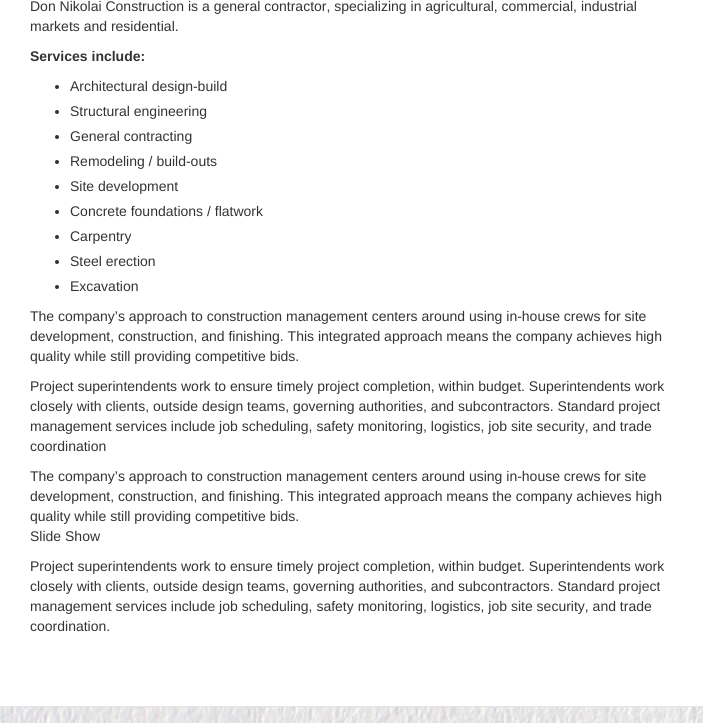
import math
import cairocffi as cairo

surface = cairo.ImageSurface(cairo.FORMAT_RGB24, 703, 723)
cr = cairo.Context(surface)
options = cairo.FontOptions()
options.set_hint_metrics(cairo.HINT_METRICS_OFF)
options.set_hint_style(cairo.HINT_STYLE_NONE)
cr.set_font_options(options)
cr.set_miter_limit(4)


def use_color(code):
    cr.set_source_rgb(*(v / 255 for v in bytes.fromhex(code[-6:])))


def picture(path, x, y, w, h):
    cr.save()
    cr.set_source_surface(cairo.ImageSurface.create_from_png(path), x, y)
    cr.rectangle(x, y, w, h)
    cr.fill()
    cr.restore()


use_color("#ffffff")
cr.paint()
picture("img1.png", 0, 707, 703, 16)
cr.select_font_face("Liberation Sans")
cr.set_font_size(14)
use_color("#333333")
cr.move_to(30, 11)
cr.show_text("Don Nikolai Construction is a general contractor, specializing in agricultural, commercial, industrial")
cr.move_to(30, 31)
cr.show_text("markets and residential.")
cr.select_font_face("Liberation Sans", cairo.FONT_SLANT_NORMAL, cairo.FONT_WEIGHT_BOLD)
cr.move_to(30, 61)
cr.show_text("Services include:")
cr.new_path()
cr.arc(57, 87, 2, 0, 2 * math.pi)
cr.fill()
cr.select_font_face("Liberation Sans")
cr.move_to(70, 91)
cr.show_text("Architectural design-build")
cr.new_path()
cr.arc(57, 112, 2, 0, 2 * math.pi)
cr.fill()
cr.move_to(70, 116)
cr.show_text("Structural engineering")
cr.new_path()
cr.arc(57, 137, 2, 0, 2 * math.pi)
cr.fill()
cr.move_to(70, 141)
cr.show_text("General contracting")
cr.new_path()
cr.arc(57, 162, 2, 0, 2 * math.pi)
cr.fill()
cr.move_to(70, 166)
cr.show_text("Remodeling / build-outs")
cr.new_path()
cr.arc(57, 187, 2, 0, 2 * math.pi)
cr.fill()
cr.move_to(70, 191)
cr.show_text("Site development")
cr.new_path()
cr.arc(57, 212, 2, 0, 2 * math.pi)
cr.fill()
cr.move_to(70, 216)
cr.show_text("Concrete foundations / flatwork")
cr.new_path()
cr.arc(57, 237, 2, 0, 2 * math.pi)
cr.fill()
cr.move_to(70, 241)
cr.show_text("Carpentry")
cr.new_path()
cr.arc(57, 262, 2, 0, 2 * math.pi)
cr.fill()
cr.move_to(70, 266)
cr.show_text("Steel erection")
cr.new_path()
cr.arc(57, 287, 2, 0, 2 * math.pi)
cr.fill()
cr.move_to(70, 291)
cr.show_text("Excavation")
cr.move_to(30, 321)
cr.show_text("The company’s approach to construction management centers around using in-house crews for site")
cr.move_to(30, 341)
cr.show_text("development, construction, and finishing. This integrated approach means the company achieves high")
cr.move_to(30, 361)
cr.show_text("quality while still providing competitive bids.")
cr.move_to(30, 391)
cr.show_text("Project superintendents work to ensure timely project completion, within budget. Superintendents work")
cr.move_to(30, 411)
cr.show_text("closely with clients, outside design teams, governing authorities, and subcontractors. Standard project")
cr.move_to(30, 431)
cr.show_text("management services include job scheduling, safety monitoring, logistics, job site security, and trade")
cr.move_to(30, 451)
cr.show_text("coordination")
cr.move_to(30, 481)
cr.show_text("The company’s approach to construction management centers around using in-house crews for site")
cr.move_to(30, 501)
cr.show_text("development, construction, and finishing. This integrated approach means the company achieves high")
cr.move_to(30, 521)
cr.show_text("quality while still providing competitive bids.")
cr.move_to(30, 541)
cr.show_text("Slide Show")
cr.move_to(30, 571)
cr.show_text("Project superintendents work to ensure timely project completion, within budget. Superintendents work")
cr.move_to(30, 591)
cr.show_text("closely with clients, outside design teams, governing authorities, and subcontractors. Standard project")
cr.move_to(30, 611)
cr.show_text("management services include job scheduling, safety monitoring, logistics, job site security, and trade")
cr.move_to(30, 631)
cr.show_text("coordination.")
use_color("#e4e4e4")
cr.rectangle(0, 706, 703, 1)
cr.fill()
surface.write_to_png("result.png")
